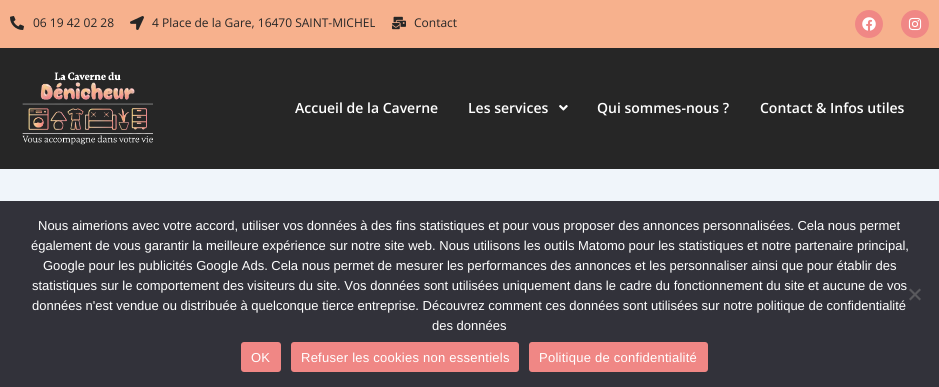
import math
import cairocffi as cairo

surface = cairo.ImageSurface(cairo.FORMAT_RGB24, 939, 387)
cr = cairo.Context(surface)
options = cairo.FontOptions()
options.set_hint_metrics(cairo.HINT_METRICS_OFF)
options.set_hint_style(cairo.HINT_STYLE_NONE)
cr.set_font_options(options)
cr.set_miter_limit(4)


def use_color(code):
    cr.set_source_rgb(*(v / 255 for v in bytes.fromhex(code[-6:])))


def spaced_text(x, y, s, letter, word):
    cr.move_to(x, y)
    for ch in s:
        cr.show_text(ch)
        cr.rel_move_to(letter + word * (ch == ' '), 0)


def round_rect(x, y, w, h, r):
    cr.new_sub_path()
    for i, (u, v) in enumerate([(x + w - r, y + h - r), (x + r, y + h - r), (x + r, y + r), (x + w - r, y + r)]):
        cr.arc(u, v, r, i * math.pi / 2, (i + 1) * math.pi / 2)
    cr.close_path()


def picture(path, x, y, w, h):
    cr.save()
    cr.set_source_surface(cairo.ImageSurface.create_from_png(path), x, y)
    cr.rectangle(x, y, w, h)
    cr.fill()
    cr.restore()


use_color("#f0f5fa")
cr.paint()
use_color("#f7b18d")
cr.rectangle(0, 0, 939, 48)
cr.fill()
picture("img1.png", 10, 16, 14, 14)
cr.select_font_face("Open Sans")
cr.set_font_size(12)
use_color("#262626")
cr.move_to(33, 27)
cr.show_text("06 19 42 02 28")
picture("img2.png", 130, 16, 14, 14)
cr.move_to(152, 27)
cr.show_text("4 Place de la Gare, 16470 SAINT-MICHEL")
picture("img3.png", 392, 16, 14, 14)
cr.move_to(414, 27)
cr.show_text("Contact")
use_color("#f08785")
cr.new_path()
cr.arc(869, 24, 14, 0, 2 * math.pi)
cr.fill()
picture("img4.png", 862, 17, 14, 14)
cr.arc(915, 24, 14, 0, 2 * math.pi)
cr.fill()
picture("img5.png", 908, 17, 14, 14)
use_color("#262626")
cr.rectangle(0, 48, 939, 121)
cr.fill()
picture("img6.png", 22, 72, 131, 73)
cr.select_font_face("Open Sans SemiBold")
cr.set_font_size(14)
use_color("#ffffff")
cr.move_to(295, 113)
cr.show_text("Accueil de la Caverne")
cr.move_to(468, 113)
cr.show_text("Les services")
picture("img7.png", 559, 105, 9, 6)
cr.move_to(597, 113)
cr.show_text("Qui sommes-nous ?")
cr.move_to(760, 113)
cr.show_text("Contact & Infos utiles")
use_color("#32323a")
cr.rectangle(0, 201, 939, 186)
cr.fill()
cr.select_font_face("Liberation Sans")
cr.set_font_size(13)
use_color("#ffffff")
cr.move_to(38, 230)
cr.show_text("Nous aimerions avec votre accord, utiliser vos données à des fins statistiques et pour vous proposer des annonces personnalisées. Cela nous permet")
cr.move_to(31, 250)
cr.show_text("également de vous garantir la meilleure expérience sur notre site web. Nous utilisons les outils Matomo pour les statistiques et notre partenaire principal,")
cr.move_to(43, 270)
cr.show_text("Google pour les publicités Google Ads. Cela nous permet de mesurer les performances des annonces et les personnaliser ainsi que pour établir des")
cr.move_to(32, 290)
cr.show_text("statistiques sur le comportement des visiteurs du site. Vos données sont utilisées uniquement dans le cadre du fonctionnement du site et aucune de vos")
cr.move_to(32, 310)
cr.show_text("données n'est vendue ou distribuée à quelconque tierce entreprise. Découvrez comment ces données sont utilisées sur notre politique de confidentialité")
cr.move_to(432, 330)
cr.show_text("des données")
use_color("#59595d")
cr.new_path()
cr.move_to(919.5, 288.5)
cr.line_to(921, 290)
cr.line_to(910.5, 300.5)
cr.line_to(909, 299)
cr.close_path()
cr.fill()
cr.new_path()
cr.move_to(909, 290)
cr.line_to(910.5, 288.5)
cr.line_to(921, 299)
cr.line_to(919.5, 300.5)
cr.close_path()
cr.fill()
use_color("#f08785")
round_rect(241, 342, 40, 30, 3)
cr.fill()
use_color("#ffffff")
spaced_text(251, 362, "OK", 0.25, 0)
use_color("#f08785")
round_rect(291, 342, 228, 30, 3)
cr.fill()
use_color("#ffffff")
spaced_text(301, 362, "Refuser les cookies non essentiels", 0.25, 0)
use_color("#f08785")
round_rect(529, 342, 179, 30, 3)
cr.fill()
use_color("#ffffff")
spaced_text(539, 362, "Politique de confidentialité", 0.25, 0)
surface.write_to_png("result.png")
